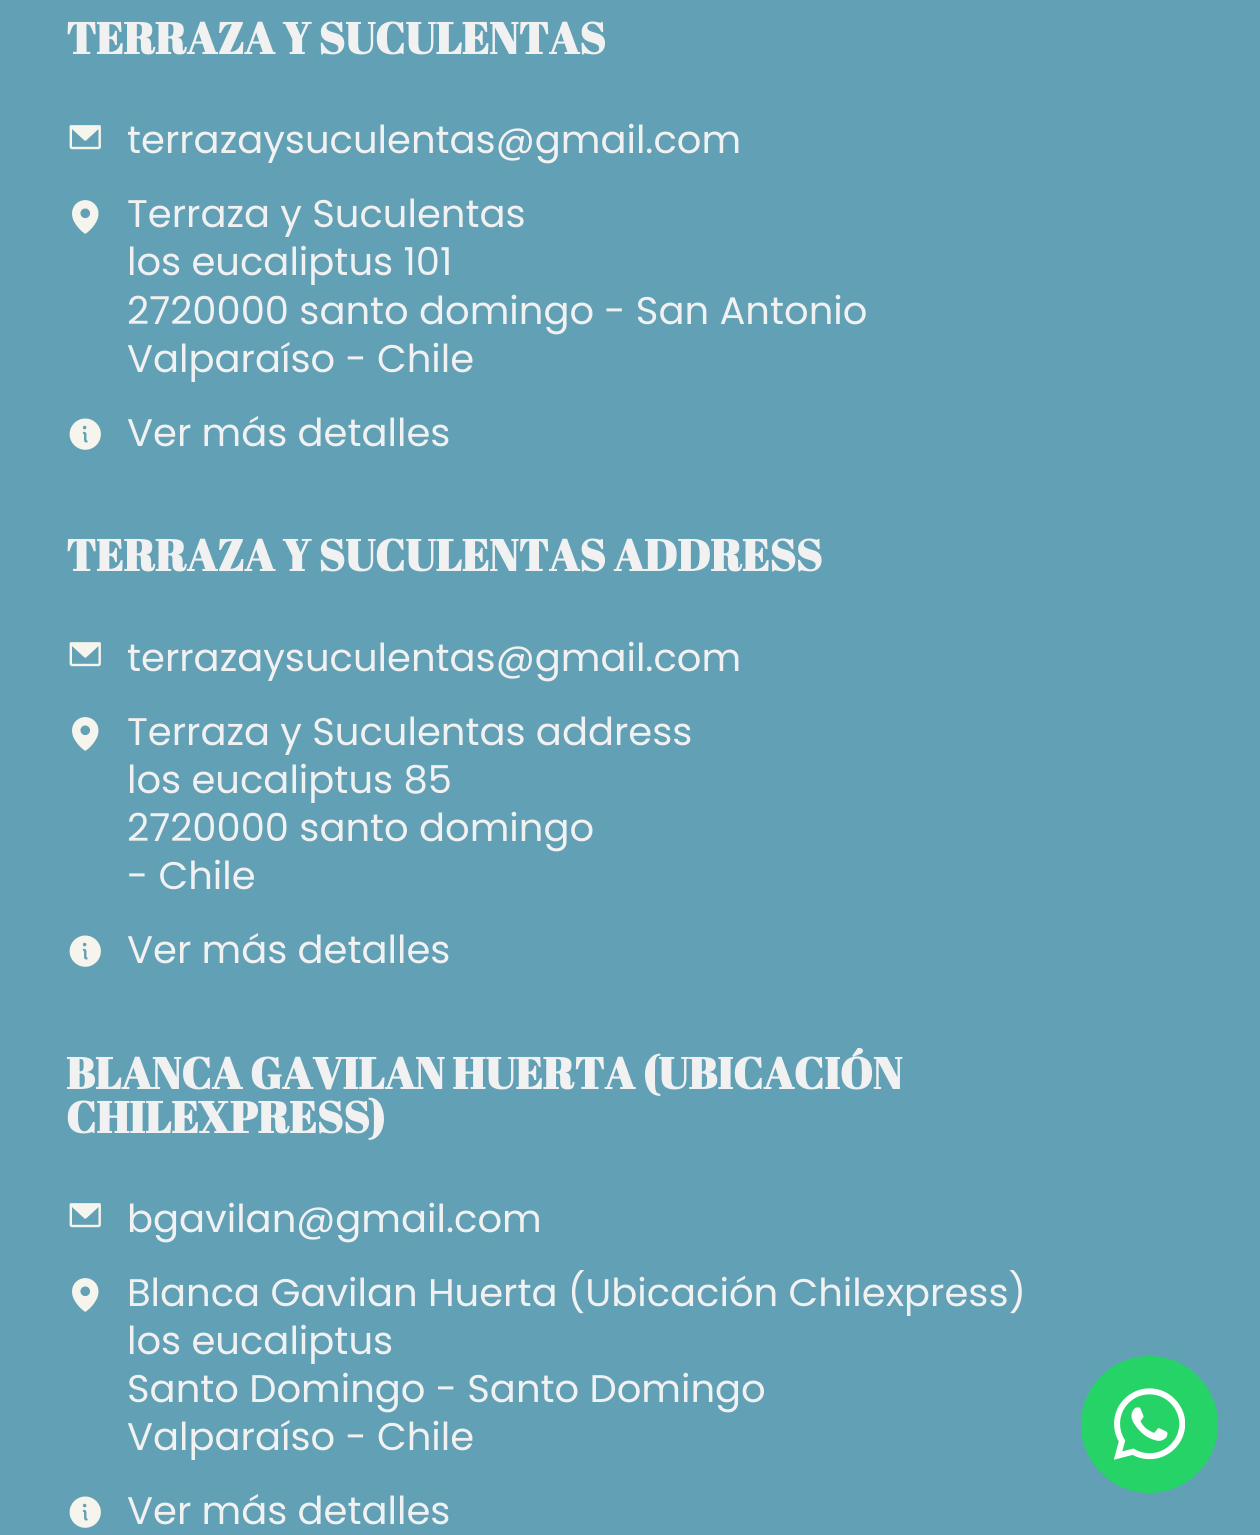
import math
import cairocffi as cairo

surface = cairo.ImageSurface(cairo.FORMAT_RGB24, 1260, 1535)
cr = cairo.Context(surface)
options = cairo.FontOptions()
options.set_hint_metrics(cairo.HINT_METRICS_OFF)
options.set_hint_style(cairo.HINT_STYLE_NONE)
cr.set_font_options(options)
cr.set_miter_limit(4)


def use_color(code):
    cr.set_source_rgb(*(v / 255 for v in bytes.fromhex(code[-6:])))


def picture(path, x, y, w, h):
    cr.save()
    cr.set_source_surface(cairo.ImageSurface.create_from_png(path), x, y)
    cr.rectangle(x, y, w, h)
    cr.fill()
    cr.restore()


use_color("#62a0b5")
cr.paint()
cr.select_font_face("Abril Fatface", cairo.FONT_SLANT_NORMAL, cairo.FONT_WEIGHT_BOLD)
cr.set_font_size(44)
use_color("#f1f1f1")
cr.move_to(66, 54)
cr.show_text("TERRAZA Y SUCULENTAS")
picture("img1.png", 69, 125, 32, 25)
cr.select_font_face("Poppins")
cr.set_font_size(38.5)
cr.move_to(127, 153)
cr.show_text("terrazaysuculentas@gmail.com")
picture("img2.png", 72, 200, 27, 34)
cr.move_to(127, 227)
cr.show_text("Terraza y Suculentas")
cr.move_to(127, 275)
cr.show_text("los eucaliptus 101")
cr.move_to(127, 324)
cr.show_text("2720000 santo domingo - San Antonio")
cr.move_to(127, 372)
cr.show_text("Valparaíso - Chile")
picture("img3.png", 69, 418, 32, 32)
cr.move_to(127, 446)
cr.show_text("Ver más detalles")
cr.select_font_face("Abril Fatface", cairo.FONT_SLANT_NORMAL, cairo.FONT_WEIGHT_BOLD)
cr.set_font_size(44)
cr.move_to(66, 571)
cr.show_text("TERRAZA Y SUCULENTAS ADDRESS")
picture("img1.png", 69, 642, 32, 25)
cr.select_font_face("Poppins")
cr.set_font_size(38.5)
cr.move_to(127, 671)
cr.show_text("terrazaysuculentas@gmail.com")
picture("img2.png", 72, 717, 27, 34)
cr.move_to(127, 745)
cr.show_text("Terraza y Suculentas address")
cr.move_to(127, 793)
cr.show_text("los eucaliptus 85")
cr.move_to(127, 841)
cr.show_text("2720000 santo domingo")
cr.move_to(127, 889)
cr.show_text("- Chile")
picture("img3.png", 69, 935, 32, 32)
cr.move_to(127, 963)
cr.show_text("Ver más detalles")
cr.select_font_face("Abril Fatface", cairo.FONT_SLANT_NORMAL, cairo.FONT_WEIGHT_BOLD)
cr.set_font_size(44)
cr.move_to(66, 1089)
cr.show_text("BLANCA GAVILAN HUERTA (UBICACIÓN")
cr.move_to(66, 1133)
cr.show_text("CHILEXPRESS)")
picture("img1.png", 69, 1203, 32, 25)
cr.select_font_face("Poppins")
cr.set_font_size(38.5)
cr.move_to(127, 1232)
cr.show_text("bgavilan@gmail.com")
picture("img2.png", 72, 1278, 27, 34)
cr.move_to(127, 1306)
cr.show_text("Blanca Gavilan Huerta (Ubicación Chilexpress)")
cr.move_to(127, 1354)
cr.show_text("los eucaliptus")
cr.move_to(127, 1402)
cr.show_text("Santo Domingo - Santo Domingo")
cr.move_to(127, 1450)
cr.show_text("Valparaíso - Chile")
picture("img3.png", 69, 1496, 32, 32)
cr.move_to(127, 1524)
cr.show_text("Ver más detalles")
use_color("#25d366")
cr.new_path()
cr.arc(1149.5, 1424.5, 68.5, 0, 2 * math.pi)
cr.fill()
picture("img4.png", 1114, 1388, 71, 72)
surface.write_to_png("result.png")
